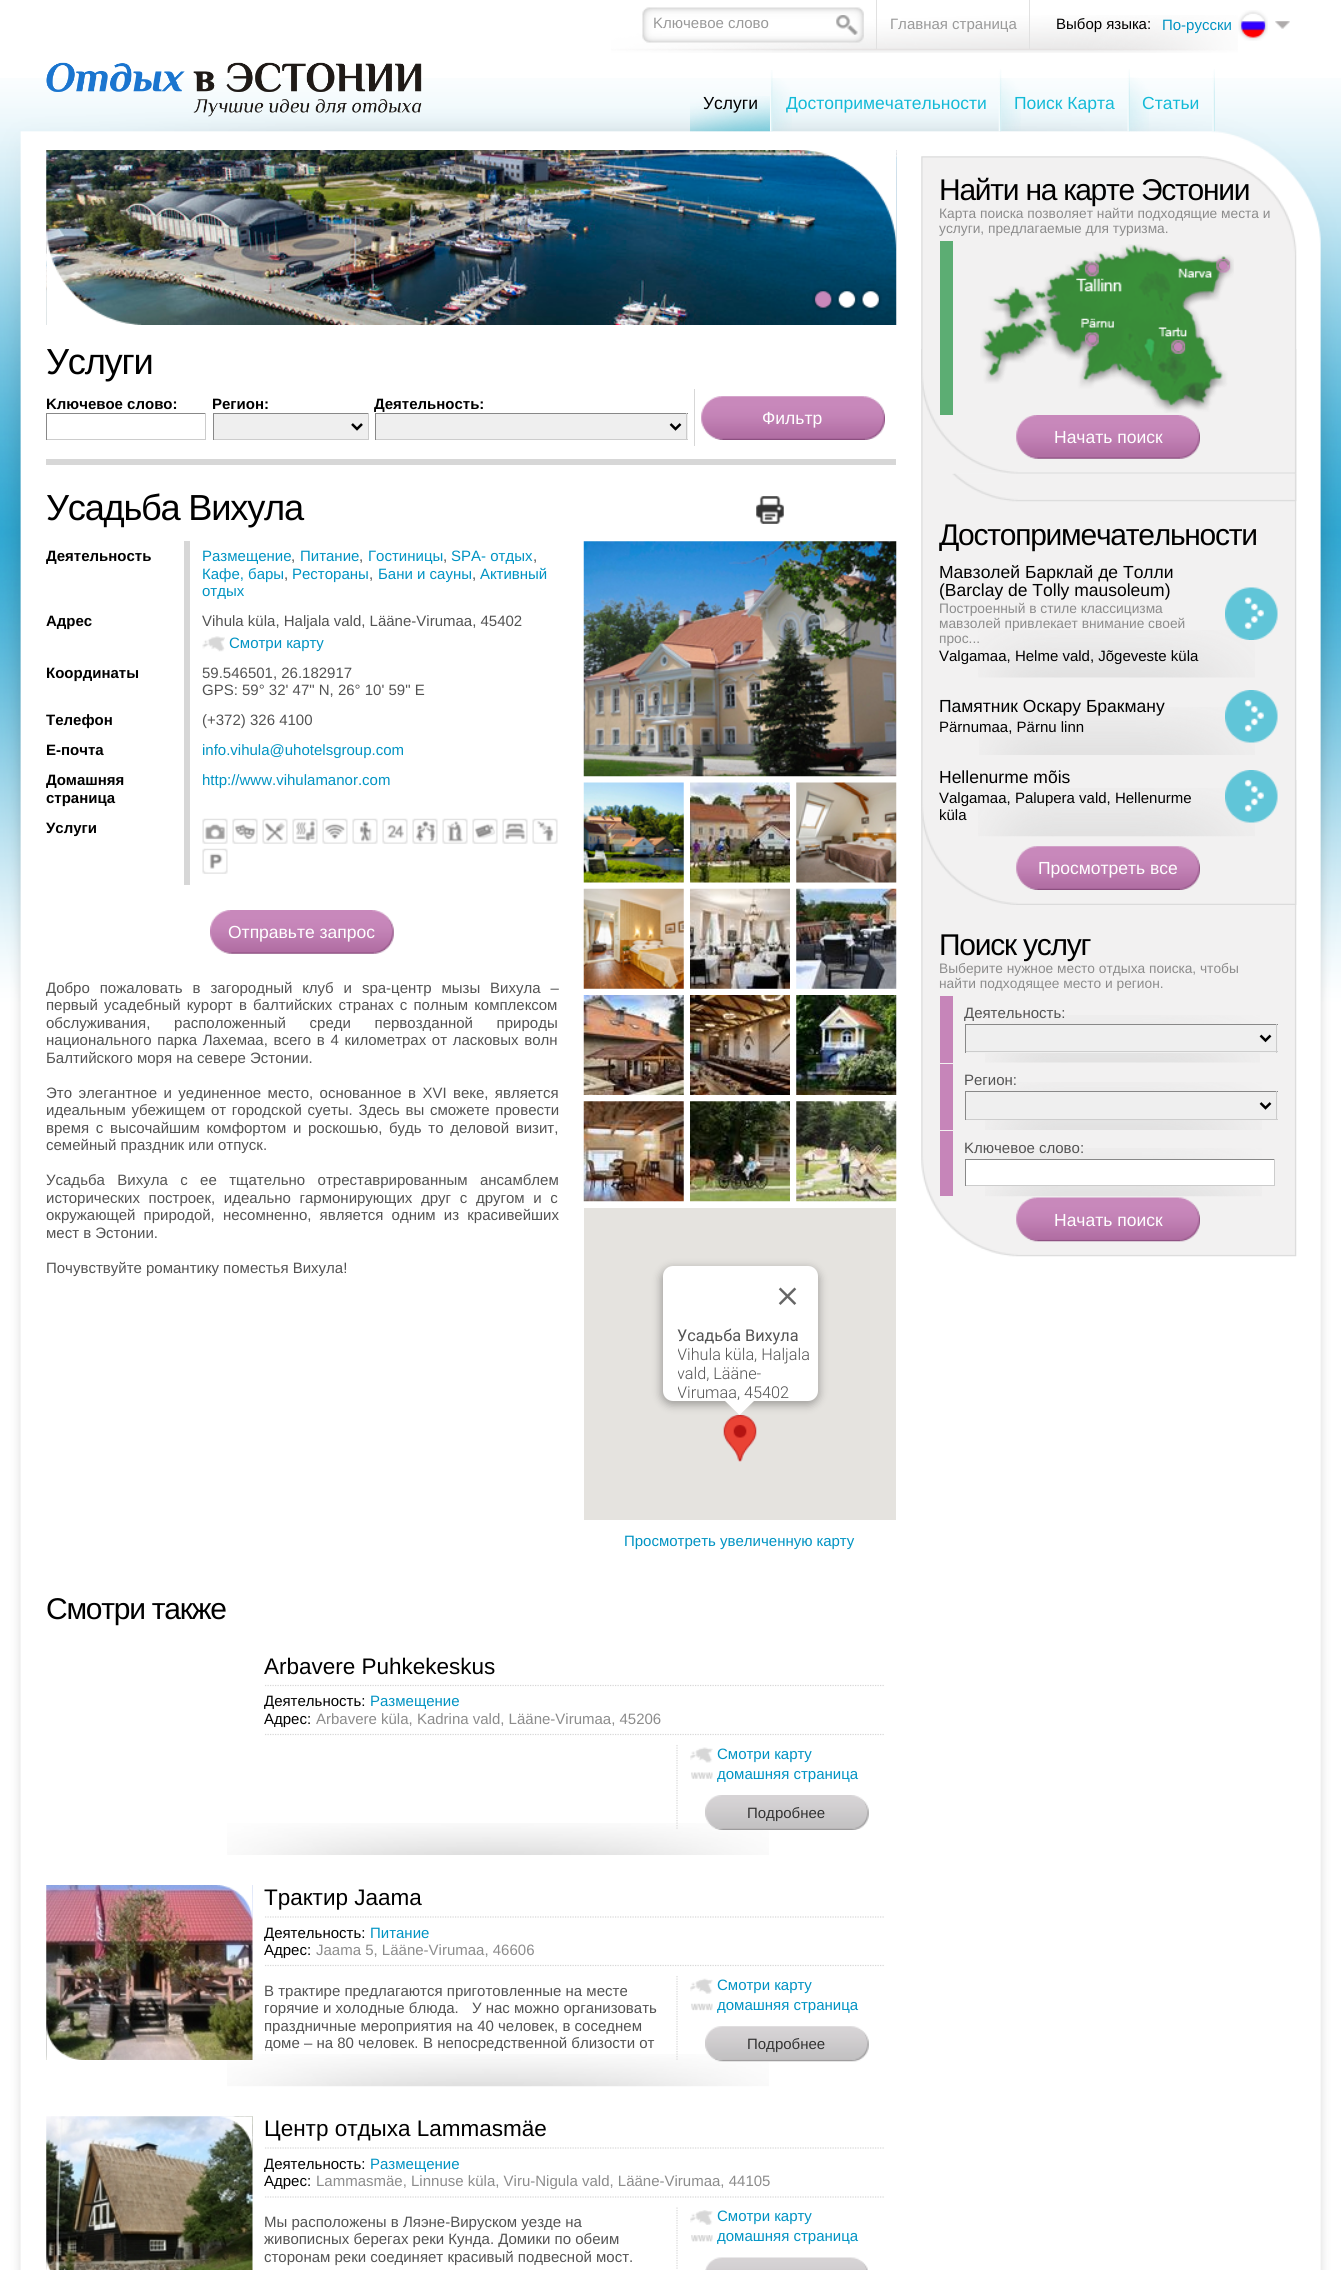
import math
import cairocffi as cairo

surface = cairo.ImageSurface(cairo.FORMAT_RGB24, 1341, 2270)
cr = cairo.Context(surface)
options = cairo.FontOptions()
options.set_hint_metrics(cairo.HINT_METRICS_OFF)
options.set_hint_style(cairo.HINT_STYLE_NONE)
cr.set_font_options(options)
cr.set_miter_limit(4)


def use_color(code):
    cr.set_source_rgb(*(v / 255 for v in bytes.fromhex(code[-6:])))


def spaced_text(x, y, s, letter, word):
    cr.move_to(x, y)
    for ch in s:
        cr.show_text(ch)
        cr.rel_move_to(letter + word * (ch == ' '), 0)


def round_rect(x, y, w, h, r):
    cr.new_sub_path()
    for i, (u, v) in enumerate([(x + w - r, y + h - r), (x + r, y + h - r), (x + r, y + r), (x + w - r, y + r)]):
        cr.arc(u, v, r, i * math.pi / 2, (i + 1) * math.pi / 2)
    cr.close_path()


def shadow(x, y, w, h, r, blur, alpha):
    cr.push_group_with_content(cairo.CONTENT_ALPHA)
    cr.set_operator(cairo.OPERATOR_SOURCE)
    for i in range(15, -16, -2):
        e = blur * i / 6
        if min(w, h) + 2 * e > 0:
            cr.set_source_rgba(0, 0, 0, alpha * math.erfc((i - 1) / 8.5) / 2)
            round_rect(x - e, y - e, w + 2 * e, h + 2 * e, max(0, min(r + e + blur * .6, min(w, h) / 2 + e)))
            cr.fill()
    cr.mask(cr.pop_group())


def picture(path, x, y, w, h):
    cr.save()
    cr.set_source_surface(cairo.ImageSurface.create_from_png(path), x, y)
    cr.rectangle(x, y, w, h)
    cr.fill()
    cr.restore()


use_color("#ffffff")
cr.paint()
picture("img1.png", 0, 78, 1341, 2192)
picture("img2.png", 46, 62, 376, 55)
picture("img3.png", 611, 15, 627, 38)
use_color("#e1e1e1")
cr.rectangle(876, 0, 1, 49)
cr.fill()
picture("img4.png", 642, 7, 222, 36)
cr.select_font_face("Liberation Sans")
cr.set_font_size(15)
use_color("#999999")
cr.move_to(653, 28)
cr.show_text("Kлючевое слово")
picture("img5.png", 836, 15, 22, 20)
use_color("#e1e1e1")
cr.rectangle(1029, 0, 1, 49)
cr.fill()
use_color("#999999")
cr.move_to(890, 29)
cr.show_text("Главная страница")
use_color("#000000")
cr.move_to(1056, 29)
cr.show_text("Выбор языка:")
use_color("#0093c3")
cr.move_to(1162, 30)
cr.show_text("По-русски")
picture("img6.png", 1238, 10, 30, 31)
picture("img7.png", 1275, 21, 15, 8)
picture("img8.png", 690, 96, 80, 36)
cr.set_font_size(17.5)
use_color("#000000")
cr.move_to(703, 109)
cr.show_text("Услуги")
picture("img10.png", 772, 78, 20, 53)
picture("img9.png", 770, 70, 3, 62)
use_color("#13bad7")
cr.move_to(786, 109)
cr.show_text("Достопримечательности")
picture("img12.png", 1001, 78, 20, 53)
picture("img11.png", 998, 69, 4, 63)
cr.move_to(1014, 109)
cr.show_text("Поиск Карта")
picture("img13.png", 1127, 69, 3, 63)
picture("img14.png", 1130, 77, 19, 55)
cr.move_to(1142, 109)
cr.show_text("Cтатьи")
picture("img15.png", 1212, 69, 3, 63)
picture("img16.png", 46, 150, 851, 175)
picture("img17.png", 801, 150, 96, 99)
picture("img18.png", 46, 226, 96, 99)
picture("img19.png", 812, 288, 23, 23)
picture("img20.png", 835, 288, 23, 23)
picture("img21.png", 859, 288, 23, 23)
cr.set_font_size(36.25)
use_color("#000000")
spaced_text(46, 374, "Услуги", -1.25, 0)
use_color("#d7d7d7")
cr.rectangle(46, 459, 850, 6)
cr.fill()
cr.select_font_face("Liberation Sans", cairo.FONT_SLANT_NORMAL, cairo.FONT_WEIGHT_BOLD)
cr.set_font_size(15)
use_color("#000000")
cr.move_to(46, 409)
cr.show_text("Kлючевое слово:")
use_color("#888888")
cr.rectangle(46, 413, 160, 1)
cr.fill()
use_color("#cccccc")
cr.rectangle(205, 413, 1, 27)
cr.fill()
cr.rectangle(46, 439, 160, 1)
cr.fill()
use_color("#888888")
cr.rectangle(46, 413, 1, 27)
cr.fill()
use_color("#000000")
cr.move_to(212, 409)
cr.show_text("Регион:")
use_color("#efefef")
cr.rectangle(214, 414, 154, 25)
cr.fill()
use_color("#888888")
cr.rectangle(213, 413, 156, 1)
cr.fill()
use_color("#cccccc")
cr.rectangle(368, 413, 1, 27)
cr.fill()
cr.rectangle(213, 439, 156, 1)
cr.fill()
use_color("#888888")
cr.rectangle(213, 413, 1, 27)
cr.fill()
cr.new_path()
cr.move_to(352, 424)
cr.line_to(357, 429)
cr.line_to(362, 424)
use_color("#000000")
cr.set_line_width(2.5)
cr.stroke()
cr.move_to(374, 409)
cr.show_text("Деятельность:")
use_color("#efefef")
cr.rectangle(376, 414, 312, 25)
cr.fill()
use_color("#888888")
cr.rectangle(375, 413, 313, 1)
cr.fill()
use_color("#cccccc")
cr.rectangle(686, 413, 1, 27)
cr.fill()
cr.rectangle(375, 439, 313, 1)
cr.fill()
use_color("#888888")
cr.rectangle(375, 413, 1, 27)
cr.fill()
cr.new_path()
cr.move_to(670.5, 424)
cr.line_to(675.5, 429)
cr.line_to(680.5, 424)
use_color("#000000")
cr.stroke()
use_color("#d7d7d7")
cr.rectangle(694, 389, 1, 57)
cr.fill()
picture("img22.png", 701, 396, 184, 44)
cr.select_font_face("Liberation Sans")
cr.set_font_size(17.5)
use_color("#ffffff")
cr.move_to(762, 424)
cr.show_text("Фильтр")
cr.set_font_size(36.25)
use_color("#000000")
spaced_text(46, 520, "Усадьба Вихула", -1.25, 0)
picture("img23.png", 756, 496, 28, 28)
cr.select_font_face("Liberation Sans", cairo.FONT_SLANT_NORMAL, cairo.FONT_WEIGHT_BOLD)
cr.set_font_size(15)
cr.move_to(46, 561)
cr.show_text("Деятельность")
use_color("#d7d7d7")
cr.rectangle(184, 541, 6, 344)
cr.fill()
cr.select_font_face("Liberation Sans")
use_color("#0093c3")
cr.move_to(202, 561)
cr.show_text("Размещение")
use_color("#535353")
cr.move_to(291, 561)
cr.show_text(",")
use_color("#0093c3")
cr.move_to(300, 561)
cr.show_text("Питание")
use_color("#535353")
cr.move_to(359, 561)
cr.show_text(",")
use_color("#0093c3")
cr.move_to(368, 561)
cr.show_text("Гостиницы")
use_color("#535353")
cr.move_to(443, 561)
cr.show_text(",")
use_color("#0093c3")
cr.move_to(451, 561)
cr.show_text("SPA- отдых")
use_color("#535353")
cr.move_to(533, 561)
cr.show_text(",")
use_color("#0093c3")
cr.move_to(202, 579)
cr.show_text("Кафе, бары")
use_color("#535353")
cr.move_to(284, 579)
cr.show_text(",")
use_color("#0093c3")
cr.move_to(292, 579)
cr.show_text("Рестораны")
use_color("#535353")
cr.move_to(369, 579)
cr.show_text(",")
use_color("#0093c3")
cr.move_to(378, 579)
cr.show_text("Бани и сауны")
use_color("#535353")
cr.move_to(472, 579)
cr.show_text(",")
use_color("#0093c3")
cr.move_to(480, 579)
cr.show_text("Aктивный")
cr.move_to(202, 596)
cr.show_text("отдых")
cr.select_font_face("Liberation Sans", cairo.FONT_SLANT_NORMAL, cairo.FONT_WEIGHT_BOLD)
use_color("#000000")
cr.move_to(46, 626)
cr.show_text("Адрес")
cr.select_font_face("Liberation Sans")
use_color("#535353")
cr.move_to(202, 626)
cr.show_text("Vihula küla, Haljala vald, Lääne-Virumaa, 45402")
picture("img24.png", 202, 636, 23, 16)
use_color("#0093c3")
cr.move_to(229, 648)
cr.show_text("Смотри карту")
cr.select_font_face("Liberation Sans", cairo.FONT_SLANT_NORMAL, cairo.FONT_WEIGHT_BOLD)
use_color("#000000")
cr.move_to(46, 678)
cr.show_text("Координаты")
cr.select_font_face("Liberation Sans")
use_color("#535353")
cr.move_to(202, 678)
cr.show_text("59.546501, 26.182917")
cr.move_to(202, 695)
cr.show_text("GPS: 59° 32' 47\" N, 26° 10' 59\" E")
cr.select_font_face("Liberation Sans", cairo.FONT_SLANT_NORMAL, cairo.FONT_WEIGHT_BOLD)
use_color("#000000")
cr.move_to(46, 725)
cr.show_text("Tелефон")
cr.select_font_face("Liberation Sans")
use_color("#535353")
cr.move_to(202, 725)
cr.show_text("(+372) 326 4100")
cr.select_font_face("Liberation Sans", cairo.FONT_SLANT_NORMAL, cairo.FONT_WEIGHT_BOLD)
use_color("#000000")
cr.move_to(46, 755)
cr.show_text("Е-почта")
cr.select_font_face("Liberation Sans")
use_color("#0093c3")
cr.move_to(202, 755)
cr.show_text("info.vihula@uhotelsgroup.com")
cr.select_font_face("Liberation Sans", cairo.FONT_SLANT_NORMAL, cairo.FONT_WEIGHT_BOLD)
use_color("#000000")
cr.move_to(46, 785)
cr.show_text("Домашняя")
cr.move_to(46, 803)
cr.show_text("страница")
cr.select_font_face("Liberation Sans")
use_color("#0093c3")
cr.move_to(202, 785)
cr.show_text("http://www.vihulamanor.com")
cr.select_font_face("Liberation Sans", cairo.FONT_SLANT_NORMAL, cairo.FONT_WEIGHT_BOLD)
use_color("#000000")
cr.move_to(46, 833)
cr.show_text("Услуги")
picture("img25.png", 202, 818, 26, 26)
picture("img26.png", 232, 818, 26, 26)
picture("img27.png", 262, 818, 26, 26)
picture("img28.png", 292, 818, 26, 26)
picture("img29.png", 322, 818, 26, 26)
picture("img30.png", 352, 818, 26, 26)
picture("img31.png", 382, 818, 26, 26)
picture("img32.png", 412, 818, 26, 26)
picture("img33.png", 442, 818, 26, 26)
picture("img34.png", 472, 818, 26, 26)
picture("img35.png", 502, 818, 26, 26)
picture("img36.png", 532, 818, 26, 26)
picture("img37.png", 202, 848, 26, 26)
picture("img38.png", 210, 910, 184, 44)
cr.select_font_face("Liberation Sans")
cr.set_font_size(17.5)
use_color("#ffffff")
cr.move_to(228, 938)
cr.show_text("Отправьте запрос")
cr.set_font_size(15)
use_color("#535353")
spaced_text(46, 993, "Добро пожаловать в загородный клуб и spa-центр мызы Вихула –", 0, 5.75)
spaced_text(46, 1010, "первый усадебный курорт в балтийских странах с полным комплексом", 0, 2)
spaced_text(46, 1028, "обслуживания, расположенный среди первозданной природы", 0, 19.5)
spaced_text(46, 1045, "национального парка Лахемаа, всего в 4 километрах от ласковых волн", 0, 1.5)
cr.move_to(46, 1063)
cr.show_text("Балтийского моря на севере Эстонии.")
spaced_text(46, 1098, "Это элегантное и уединенное место, основанное в XVI веке, является", 0, 2.25)
spaced_text(46, 1115, "идеальным убежищем от городской суеты. Здесь вы сможете провести", 0, 1.5)
spaced_text(46, 1133, "время с высочайшим комфортом и роскошью, будь то деловой визит,", 0, 2.5)
cr.move_to(46, 1150)
cr.show_text("семейный праздник или отпуск.")
spaced_text(46, 1185, "Усадьба Вихула с ее тщательно отреставрированным ансамблем", 0, 8.25)
spaced_text(46, 1203, "исторических построек, идеально гармонирующих друг с другом и с", 0, 4.5)
spaced_text(46, 1220, "окружающей природой, несомненно, является одним из красивейших", 0, 4)
cr.move_to(46, 1238)
cr.show_text("мест в Эстонии.")
cr.move_to(46, 1273)
cr.show_text("Почувствуйте романтику поместья Вихула!")
picture("img39.png", 583, 541, 314, 236)
picture("img40.png", 583, 782, 101, 101)
picture("img41.png", 690, 782, 100, 101)
picture("img42.png", 796, 782, 101, 101)
picture("img43.png", 583, 888, 101, 101)
picture("img44.png", 690, 888, 100, 101)
picture("img45.png", 796, 888, 101, 101)
picture("img46.png", 583, 995, 101, 100)
picture("img47.png", 690, 995, 100, 100)
picture("img48.png", 796, 995, 101, 100)
picture("img49.png", 583, 1101, 101, 101)
picture("img50.png", 690, 1101, 100, 101)
picture("img51.png", 796, 1101, 101, 101)
use_color("#e5e3df")
cr.rectangle(584, 1208, 312, 312)
cr.fill()
picture("img53.png", 723, 1415, 34, 47)
use_color("#000000")
shadow(661, 1268, 158, 137, 11, 4.5, 0.3)
use_color("#ffffff")
round_rect(663, 1266, 155, 135, 10)
cr.fill()
picture("img52.png", 778, 1287, 19, 18)
cr.select_font_face("Roboto")
cr.set_font_size(16.25)
use_color("#535353")
cr.move_to(677, 1341)
cr.show_text("Усадьба Вихула")
cr.save()
cr.rectangle(678, 1326, 140, 75)
cr.clip()
cr.select_font_face("Roboto Light")
cr.move_to(677, 1360)
cr.show_text("Vihula küla, Haljala")
cr.move_to(677, 1379)
cr.show_text("vald, Lääne-")
cr.move_to(677, 1398)
cr.show_text("Virumaa, 45402")
cr.restore()
use_color("#ffffff")
cr.new_path()
cr.move_to(725, 1400)
cr.line_to(725, 1401)
cr.line_to(739.5, 1415)
cr.line_to(755, 1400)
cr.close_path()
cr.fill()
cr.select_font_face("Liberation Sans")
cr.set_font_size(15)
use_color("#0093c3")
cr.move_to(624, 1546)
cr.show_text("Просмотреть увеличенную карту")
cr.set_font_size(30)
use_color("#000000")
spaced_text(46, 1619, "Смотри также", -1.25, 0)
picture("img54.png", 227, 1823, 542, 32)
cr.set_font_size(22.5)
cr.move_to(264, 1674)
cr.show_text("Arbavere Puhkekeskus")
cr.new_path()
cr.move_to(265, 1685.5)
cr.line_to(884, 1685.5)
use_color("#d7d7d7")
cr.set_line_width(1.2)
cr.set_dash([1.25, 1.25])
cr.stroke()
cr.new_path()
cr.move_to(265, 1734.5)
cr.line_to(884, 1734.5)
cr.stroke()
cr.set_font_size(15)
use_color("#000000")
cr.move_to(264, 1706)
cr.show_text("Деятельность:")
use_color("#0093c3")
cr.move_to(370, 1706)
cr.show_text("Размещение")
use_color("#000000")
cr.move_to(264, 1724)
cr.show_text("Адрес:")
use_color("#8c8c8c")
cr.move_to(316, 1724)
cr.show_text("Arbavere küla, Kadrina vald, Lääne-Virumaa, 45206")
cr.new_path()
cr.move_to(677, 1745)
cr.line_to(677, 1830)
use_color("#d7d7d7")
cr.stroke()
picture("img55.png", 690, 1747, 23, 16)
use_color("#0093c3")
cr.move_to(717, 1759)
cr.show_text("Смотри карту")
picture("img56.png", 691, 1772, 22, 7)
cr.move_to(717, 1779)
cr.show_text("домашняя страница")
picture("img57.png", 705, 1795, 164, 35)
use_color("#333333")
cr.move_to(747, 1818)
cr.show_text("Подробнее")
picture("img58.png", 227, 2054, 542, 33)
picture("img59.png", 46, 1885, 207, 175)
picture("img60.png", 46, 1885, 207, 175)
cr.set_font_size(22.5)
use_color("#000000")
cr.move_to(264, 1905)
cr.show_text("Трактир Jaama")
cr.new_path()
cr.move_to(265, 1917)
cr.line_to(884, 1917)
use_color("#d7d7d7")
cr.stroke()
cr.new_path()
cr.move_to(265, 1965.5)
cr.line_to(884, 1965.5)
cr.stroke()
cr.set_font_size(15)
use_color("#000000")
cr.move_to(264, 1938)
cr.show_text("Деятельность:")
use_color("#0093c3")
cr.move_to(370, 1938)
cr.show_text("Питание")
use_color("#000000")
cr.move_to(264, 1955)
cr.show_text("Адрес:")
use_color("#8c8c8c")
cr.move_to(316, 1955)
cr.show_text("Jaama 5, Lääne-Virumaa, 46606")
use_color("#535353")
cr.move_to(264, 1996)
cr.show_text("В трактире предлагаются приготовленные на месте")
cr.move_to(264, 2013)
cr.show_text("горячие и холодные блюда.")
cr.move_to(472, 2013)
cr.show_text("У нас можно организовать")
cr.move_to(264, 2031)
cr.show_text("праздничные мероприятия на 40 человек, в соседнем")
cr.save()
cr.rectangle(265, 1983, 399, 73)
cr.clip()
cr.move_to(264, 2048)
cr.show_text("доме ‒ на 80 человек.")
cr.restore()
cr.move_to(423, 2048)
cr.show_text("В непосредственной близости от")
cr.new_path()
cr.move_to(677, 1976)
cr.line_to(677, 2061)
use_color("#d7d7d7")
cr.stroke()
picture("img61.png", 690, 1978, 23, 16)
use_color("#0093c3")
cr.move_to(717, 1990)
cr.show_text("Смотри карту")
picture("img62.png", 691, 2003, 22, 8)
cr.move_to(717, 2010)
cr.show_text("домашняя страница")
picture("img63.png", 705, 2026, 164, 36)
use_color("#333333")
cr.move_to(747, 2049)
cr.show_text("Подробнее")
picture("img64.png", 46, 2116, 207, 154)
picture("img65.png", 46, 2116, 207, 154)
cr.set_font_size(22.5)
use_color("#000000")
cr.move_to(264, 2136)
cr.show_text("Центр отдыха Lammasmäe")
cr.new_path()
cr.move_to(265, 2148)
cr.line_to(884, 2148)
use_color("#d7d7d7")
cr.stroke()
cr.new_path()
cr.move_to(265, 2197)
cr.line_to(884, 2197)
cr.stroke()
cr.set_font_size(15)
use_color("#000000")
cr.move_to(264, 2169)
cr.show_text("Деятельность:")
use_color("#0093c3")
cr.move_to(370, 2169)
cr.show_text("Размещение")
use_color("#000000")
cr.move_to(264, 2186)
cr.show_text("Адрес:")
use_color("#8c8c8c")
cr.move_to(316, 2186)
cr.show_text("Lammasmäe, Linnuse küla, Viru-Nigula vald, Lääne-Virumaa, 44105")
use_color("#535353")
cr.move_to(264, 2227)
cr.show_text("Мы расположены в Ляэне-Вируском уезде на")
cr.move_to(264, 2244)
cr.show_text("живописных берегах реки Кунда. Домики по обеим")
cr.move_to(264, 2262)
cr.show_text("сторонам реки соединяет красивый подвесной мост.")
cr.new_path()
cr.move_to(677, 2207.5)
cr.line_to(677, 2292.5)
use_color("#d7d7d7")
cr.stroke()
picture("img66.png", 690, 2210, 23, 15)
use_color("#0093c3")
cr.move_to(717, 2221)
cr.show_text("Смотри карту")
picture("img67.png", 691, 2235, 22, 7)
cr.move_to(717, 2241)
cr.show_text("домашняя страница")
picture("img68.png", 705, 2257, 163, 13)
picture("img69.png", 921, 156, 376, 749)
picture("img70.png", 921, 349, 376, 125)
cr.set_font_size(30)
use_color("#000000")
spaced_text(939, 200, "Найти на карте Эстонии", -1.25, 0)
cr.set_font_size(13.75)
use_color("#8c8c8c")
cr.move_to(939, 218)
cr.show_text("Карта поиска позволяет найти подходящие места и")
cr.move_to(939, 233)
cr.show_text("услуги, предлагаемые для туризма.")
use_color("#5cad73")
cr.rectangle(940, 241, 13, 174)
cr.fill()
picture("img71.png", 980, 244, 254, 169)
picture("img72.png", 1016, 415, 184, 44)
cr.set_font_size(17.5)
use_color("#ffffff")
cr.move_to(1054, 443)
cr.show_text("Начать поиск")
picture("img73.png", 952, 473, 345, 29)
picture("img74.png", 921, 780, 376, 125)
cr.set_font_size(30)
use_color("#000000")
spaced_text(939, 545, "Достопримечательности", -1.25, 0)
picture("img75.png", 978, 630, 277, 48)
cr.set_font_size(17.5)
cr.move_to(939, 578)
cr.show_text("Мавзолей Барклай де Толли")
cr.move_to(939, 596)
cr.show_text("(Barclay de Tolly mausoleum)")
cr.set_font_size(13.75)
use_color("#8c8c8c")
cr.move_to(939, 613)
cr.show_text("Построенный в стиле классицизма")
cr.move_to(939, 628)
cr.show_text("мавзолей привлекает внимание своей")
cr.move_to(939, 643)
cr.show_text("прос...")
cr.set_font_size(15)
use_color("#000000")
cr.move_to(939, 661)
cr.show_text("Valgamaa, Helme vald, Jõgeveste küla")
picture("img76.png", 1225, 587, 53, 53)
picture("img77.png", 979, 707, 276, 48)
cr.set_font_size(17.5)
cr.move_to(939, 712)
cr.show_text("Памятник Оскару Бракману")
cr.set_font_size(15)
cr.move_to(939, 732)
cr.show_text("Pärnumaa, Pärnu linn")
picture("img78.png", 1225, 690, 53, 53)
picture("img79.png", 978, 788, 277, 49)
cr.set_font_size(17.5)
cr.move_to(939, 783)
cr.show_text("Hellenurme mõis")
cr.set_font_size(15)
cr.move_to(939, 803)
cr.show_text("Valgamaa, Palupera vald, Hellenurme")
cr.move_to(939, 820)
cr.show_text("küla")
picture("img80.png", 1225, 770, 53, 53)
picture("img81.png", 1016, 846, 184, 44)
cr.set_font_size(17.5)
use_color("#ffffff")
cr.move_to(1038, 874)
cr.show_text("Просмотреть все")
picture("img82.png", 921, 905, 376, 352)
cr.set_font_size(30)
use_color("#000000")
spaced_text(939, 955, "Поиск услуг", -1.25, 0)
cr.set_font_size(13.75)
use_color("#8c8c8c")
cr.move_to(939, 973)
cr.show_text("Выберите нужное место отдыха поиска, чтобы")
cr.move_to(939, 988)
cr.show_text("найти подходящее место и регион.")
picture("img83.png", 985, 1015, 275, 48)
use_color("#c685b9")
cr.rectangle(940, 996, 13, 67)
cr.fill()
cr.set_font_size(15)
use_color("#535353")
cr.move_to(964, 1018)
cr.show_text("Деятельность:")
use_color("#efefef")
cr.rectangle(966, 1025, 312, 28)
cr.fill()
use_color("#888888")
cr.rectangle(965, 1024, 313, 1)
cr.fill()
use_color("#cccccc")
cr.rectangle(1276, 1024, 1, 29)
cr.fill()
cr.rectangle(965, 1051, 313, 1)
cr.fill()
use_color("#888888")
cr.rectangle(965, 1024, 1, 29)
cr.fill()
cr.new_path()
cr.move_to(1260.5, 1035.5)
cr.line_to(1265.5, 1040.5)
cr.line_to(1270.5, 1035.5)
use_color("#000000")
cr.set_line_width(2.5)
cr.set_dash([])
cr.stroke()
picture("img84.png", 985, 1082, 277, 48)
use_color("#c685b9")
cr.rectangle(940, 1064, 13, 66)
cr.fill()
use_color("#535353")
cr.move_to(964, 1085)
cr.show_text("Регион:")
use_color("#efefef")
cr.rectangle(966, 1092, 312, 27)
cr.fill()
use_color("#888888")
cr.rectangle(965, 1091, 313, 1)
cr.fill()
use_color("#cccccc")
cr.rectangle(1276, 1091, 1, 29)
cr.fill()
cr.rectangle(965, 1119, 313, 1)
cr.fill()
use_color("#888888")
cr.rectangle(965, 1091, 1, 29)
cr.fill()
cr.new_path()
cr.move_to(1260.5, 1103)
cr.line_to(1265.5, 1108)
cr.line_to(1270.5, 1103)
use_color("#000000")
cr.stroke()
picture("img85.png", 985, 1148, 277, 49)
use_color("#c685b9")
cr.rectangle(940, 1131, 13, 65)
cr.fill()
use_color("#535353")
cr.move_to(964, 1153)
cr.show_text("Kлючевое слово:")
use_color("#ffffff")
cr.rectangle(966, 1160, 308, 25)
cr.fill()
use_color("#888888")
cr.rectangle(965, 1159, 310, 1)
cr.fill()
use_color("#cccccc")
cr.rectangle(1274, 1159, 1, 27)
cr.fill()
cr.rectangle(965, 1185, 310, 1)
cr.fill()
use_color("#888888")
cr.rectangle(965, 1159, 1, 27)
cr.fill()
picture("img86.png", 1016, 1197, 184, 45)
cr.set_font_size(17.5)
use_color("#ffffff")
cr.move_to(1054, 1226)
cr.show_text("Начать поиск")
surface.write_to_png("result.png")
